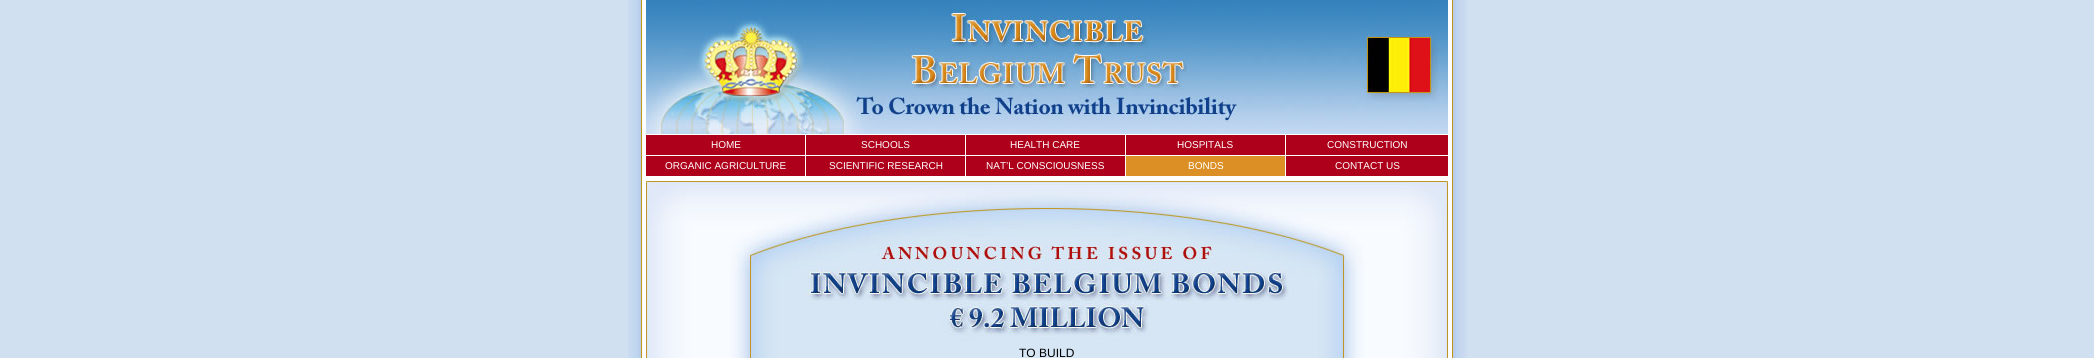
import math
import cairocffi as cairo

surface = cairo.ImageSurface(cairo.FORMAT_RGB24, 2094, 358)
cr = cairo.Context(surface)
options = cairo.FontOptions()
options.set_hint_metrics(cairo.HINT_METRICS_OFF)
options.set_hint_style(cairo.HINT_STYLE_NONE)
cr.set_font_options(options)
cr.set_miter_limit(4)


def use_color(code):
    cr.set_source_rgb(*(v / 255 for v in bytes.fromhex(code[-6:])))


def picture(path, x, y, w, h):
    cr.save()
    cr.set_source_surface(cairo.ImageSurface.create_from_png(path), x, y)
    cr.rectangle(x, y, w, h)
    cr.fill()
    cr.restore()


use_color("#d0e0f0")
cr.paint()
picture("img1.png", 628, 0, 839, 358)
picture("img2.png", 646, 0, 802, 134)
use_color("#ae001a")
cr.rectangle(646, 135, 802, 41)
cr.fill()
use_color("#ffffff")
cr.rectangle(805, 135, 1, 41)
cr.fill()
cr.rectangle(646, 155, 160, 1)
cr.fill()
cr.select_font_face("Liberation Sans")
cr.set_font_size(10)
cr.move_to(711, 148)
cr.show_text("HOME")
cr.rectangle(965, 135, 1, 41)
cr.fill()
cr.rectangle(806, 155, 160, 1)
cr.fill()
cr.move_to(861, 148)
cr.show_text("SCHOOLS")
cr.rectangle(1125, 135, 1, 41)
cr.fill()
cr.rectangle(966, 155, 160, 1)
cr.fill()
cr.move_to(1010, 148)
cr.show_text("HEALTH CARE")
cr.rectangle(1285, 135, 1, 41)
cr.fill()
cr.rectangle(1126, 155, 322, 1)
cr.fill()
cr.move_to(1177, 148)
cr.show_text("HOSPITALS")
cr.move_to(1327, 148)
cr.show_text("CONSTRUCTION")
cr.move_to(665, 169)
cr.show_text("ORGANIC AGRICULTURE")
cr.move_to(829, 169)
cr.show_text("SCIENTIFIC RESEARCH")
cr.move_to(986, 169)
cr.show_text("NAT’L CONSCIOUSNESS")
use_color("#db8f24")
cr.rectangle(1126, 156, 159, 20)
cr.fill()
use_color("#ffffff")
cr.move_to(1188, 169)
cr.show_text("BONDS")
cr.move_to(1335, 169)
cr.show_text("CONTACT US")
picture("img3.png", 646, 181, 802, 177)
cr.set_font_size(12)
use_color("#000000")
cr.move_to(1019, 357)
cr.show_text("TO BUILD")
surface.write_to_png("result.png")
